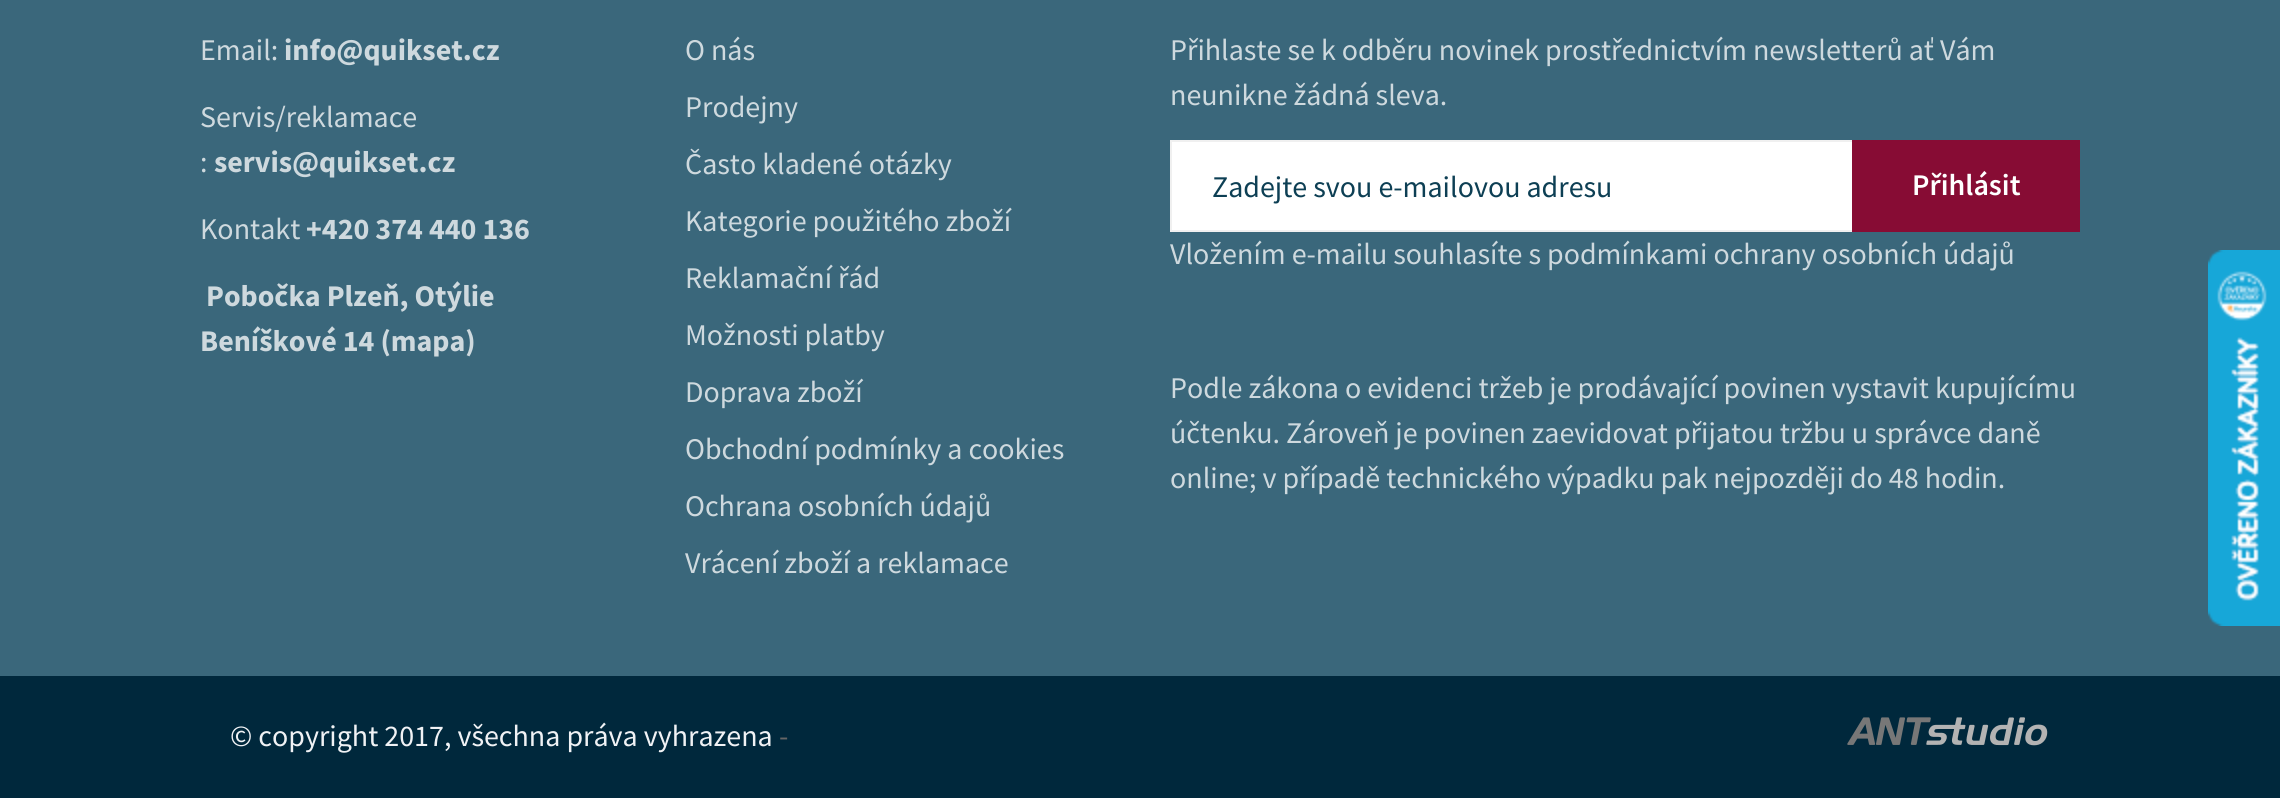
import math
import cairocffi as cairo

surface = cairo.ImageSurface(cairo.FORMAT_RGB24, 2280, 798)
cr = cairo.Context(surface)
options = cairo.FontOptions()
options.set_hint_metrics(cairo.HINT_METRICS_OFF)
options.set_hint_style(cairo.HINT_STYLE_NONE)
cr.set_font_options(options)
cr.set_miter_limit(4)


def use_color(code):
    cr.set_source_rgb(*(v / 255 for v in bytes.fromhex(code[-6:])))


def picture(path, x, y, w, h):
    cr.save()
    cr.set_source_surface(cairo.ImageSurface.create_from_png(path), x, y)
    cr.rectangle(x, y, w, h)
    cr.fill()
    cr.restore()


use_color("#3a677b")
cr.paint()
cr.select_font_face("Source Sans Pro")
cr.set_font_size(30)
use_color("#ced9de")
cr.move_to(200, 60)
cr.show_text("Email:")
cr.select_font_face("Source Sans Pro", cairo.FONT_SLANT_NORMAL, cairo.FONT_WEIGHT_BOLD)
cr.move_to(284, 60)
cr.show_text("info@quikset.cz")
cr.select_font_face("Source Sans Pro")
cr.move_to(200, 127)
cr.show_text("Servis/reklamace")
cr.move_to(200, 172)
cr.show_text(":")
cr.select_font_face("Source Sans Pro", cairo.FONT_SLANT_NORMAL, cairo.FONT_WEIGHT_BOLD)
cr.move_to(214, 172)
cr.show_text("servis@quikset.cz")
cr.select_font_face("Source Sans Pro")
cr.move_to(200, 239)
cr.show_text("Kontakt")
cr.select_font_face("Source Sans Pro", cairo.FONT_SLANT_NORMAL, cairo.FONT_WEIGHT_BOLD)
cr.move_to(306, 239)
cr.show_text("+420 374 440 136")
cr.move_to(206, 306)
cr.show_text("Pobočka Plzeň, Otýlie")
cr.move_to(200, 351)
cr.show_text("Beníškové 14 (mapa)")
cr.select_font_face("Source Sans Pro")
cr.move_to(685, 60)
cr.show_text("O nás")
cr.move_to(685, 117)
cr.show_text("Prodejny")
cr.move_to(685, 174)
cr.show_text("Často kladené otázky")
cr.move_to(685, 231)
cr.show_text("Kategorie použitého zboží")
cr.move_to(685, 288)
cr.show_text("Reklamační řád")
cr.move_to(685, 345)
cr.show_text("Možnosti platby")
cr.move_to(685, 402)
cr.show_text("Doprava zboží")
cr.move_to(685, 459)
cr.show_text("Obchodní podmínky a cookies")
cr.move_to(685, 516)
cr.show_text("Ochrana osobních údajů")
cr.move_to(685, 573)
cr.show_text("Vrácení zboží a reklamace")
cr.move_to(1170, 60)
cr.show_text("Přihlaste se k odběru novinek prostřednictvím newsletterů ať Vám")
cr.move_to(1170, 105)
cr.show_text("neunikne žádná sleva.")
use_color("#ffffff")
cr.rectangle(1171, 141, 682, 90)
cr.fill_preserve()
use_color("#f0f0f0")
cr.stroke()
use_color("#0d3f54")
cr.move_to(1212, 197)
cr.show_text("Zadejte svou e-mailovou adresu")
use_color("#870c34")
cr.rectangle(1852, 140, 228, 92)
cr.fill()
cr.select_font_face("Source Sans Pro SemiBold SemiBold")
use_color("#ffffff")
cr.move_to(1912, 195)
cr.show_text("Přihlásit")
cr.select_font_face("Source Sans Pro")
use_color("#ced9de")
cr.move_to(1170, 264)
cr.show_text("Vložením e-mailu souhlasíte s podmínkami ochrany osobních údajů")
cr.move_to(1170, 398)
cr.show_text("Podle zákona o evidenci tržeb je prodávající povinen vystavit kupujícímu")
cr.move_to(1170, 443)
cr.show_text("účtenku. Zároveň je povinen zaevidovat přijatou tržbu u správce daně")
cr.move_to(1170, 488)
cr.show_text("online; v případě technického výpadku pak nejpozději do 48 hodin.")
use_color("#00283c")
cr.rectangle(0, 676, 2280, 122)
cr.fill()
use_color("#f0f2f5")
cr.move_to(230, 746)
cr.show_text("© copyright 2017, všechna práva vyhrazena")
use_color("#666666")
cr.move_to(779, 746)
cr.show_text("-")
picture("img1.png", 1847, 717, 201, 29)
picture("img2.png", 2208, 250, 72, 376)
surface.write_to_png("result.png")
